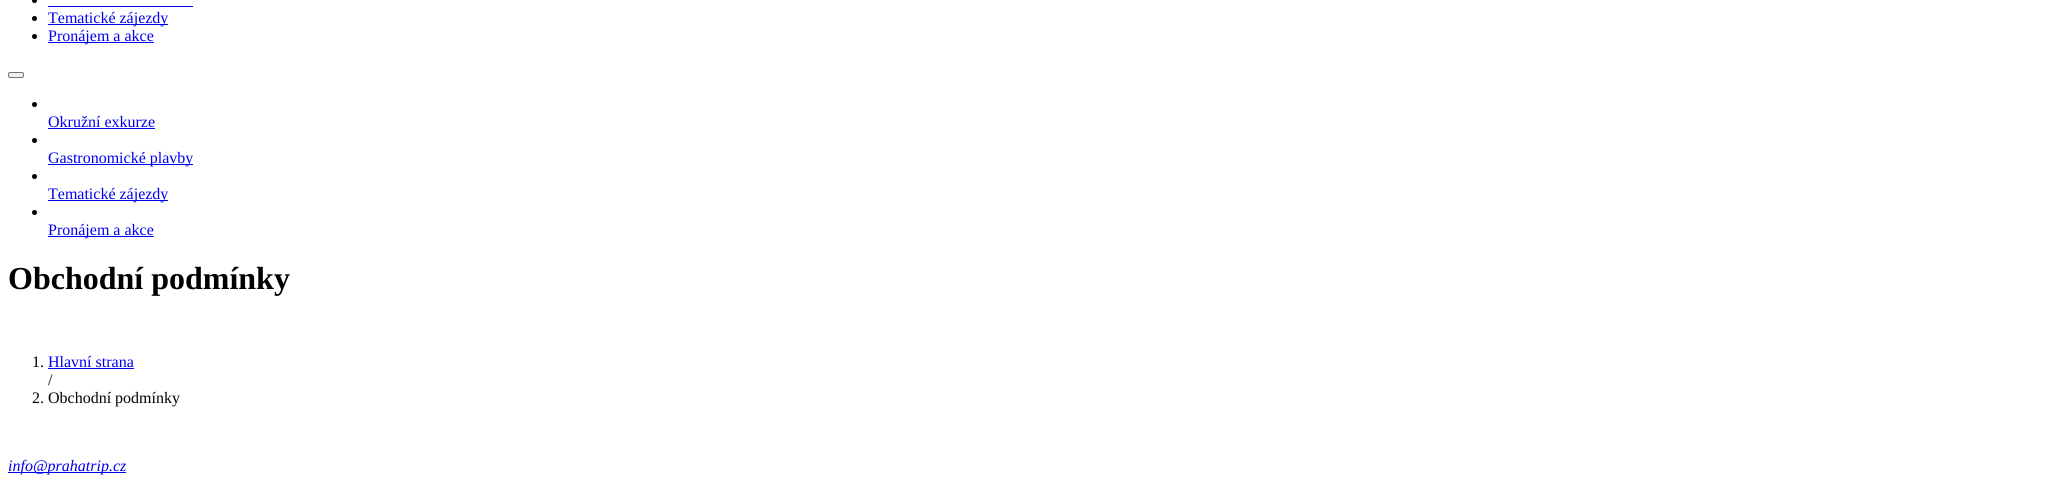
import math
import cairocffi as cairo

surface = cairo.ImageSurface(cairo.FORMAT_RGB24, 2053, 486)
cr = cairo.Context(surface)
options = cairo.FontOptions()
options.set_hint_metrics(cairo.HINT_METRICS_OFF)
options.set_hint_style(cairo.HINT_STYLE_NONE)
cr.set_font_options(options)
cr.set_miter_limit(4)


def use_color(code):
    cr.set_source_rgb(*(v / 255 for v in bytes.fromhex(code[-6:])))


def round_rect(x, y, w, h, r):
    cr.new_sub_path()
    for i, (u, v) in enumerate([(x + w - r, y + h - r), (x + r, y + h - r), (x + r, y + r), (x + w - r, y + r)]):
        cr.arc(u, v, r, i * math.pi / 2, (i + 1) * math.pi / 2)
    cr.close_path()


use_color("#ffffff")
cr.paint()
use_color("#000000")
cr.arc(34.5, 0.5, 2.5, 0, 2 * math.pi)
cr.fill()
use_color("#0000ee")
cr.rectangle(48, 6, 145, 1)
cr.fill()
use_color("#000000")
cr.arc(34.5, 18.5, 2.5, 0, 2 * math.pi)
cr.fill()
use_color("#0000ee")
cr.rectangle(48, 24, 120, 1)
cr.fill()
cr.select_font_face("Liberation Serif")
cr.set_font_size(16)
cr.move_to(48, 23)
cr.show_text("Tematické zájezdy")
use_color("#000000")
cr.new_path()
cr.arc(34.5, 36.5, 2.5, 0, 2 * math.pi)
cr.fill()
use_color("#0000ee")
cr.rectangle(48, 42, 106, 1)
cr.fill()
cr.move_to(48, 41)
cr.show_text("Pronájem a akce")
use_color("#efefef")
round_rect(8.5, 72.5, 15, 5, 1.5)
cr.fill_preserve()
use_color("#767676")
cr.set_line_width(1)
cr.stroke()
use_color("#000000")
cr.arc(34.5, 104.5, 2.5, 0, 2 * math.pi)
cr.fill()
use_color("#0000ee")
cr.move_to(48, 127)
cr.show_text("Okružní exkurze")
cr.rectangle(48, 128, 107, 1)
cr.fill()
use_color("#000000")
cr.arc(34.5, 140.5, 2.5, 0, 2 * math.pi)
cr.fill()
use_color("#0000ee")
cr.rectangle(48, 164, 145, 1)
cr.fill()
cr.move_to(48, 163)
cr.show_text("Gastronomické plavby")
use_color("#000000")
cr.new_path()
cr.arc(34.5, 176.5, 2.5, 0, 2 * math.pi)
cr.fill()
use_color("#0000ee")
cr.rectangle(48, 200, 120, 1)
cr.fill()
cr.move_to(48, 199)
cr.show_text("Tematické zájezdy")
use_color("#000000")
cr.new_path()
cr.arc(34.5, 212.5, 2.5, 0, 2 * math.pi)
cr.fill()
use_color("#0000ee")
cr.rectangle(48, 236, 106, 1)
cr.fill()
cr.move_to(48, 235)
cr.show_text("Pronájem a akce")
cr.select_font_face("Liberation Serif", cairo.FONT_SLANT_NORMAL, cairo.FONT_WEIGHT_BOLD)
cr.set_font_size(32)
use_color("#000000")
cr.move_to(8, 289)
cr.show_text("Obchodní podmínky")
cr.select_font_face("Liberation Serif")
cr.set_font_size(16)
cr.move_to(32, 367)
cr.show_text("1.")
use_color("#0000ee")
cr.move_to(48, 367)
cr.show_text("Hlavní strana")
cr.rectangle(48, 368, 86, 1)
cr.fill()
use_color("#000000")
cr.move_to(48, 385)
cr.show_text("/")
cr.move_to(32, 403)
cr.show_text("2. Obchodní podmínky")
use_color("#0000ee")
cr.rectangle(8, 472, 118, 1)
cr.fill()
cr.select_font_face("Liberation Serif", cairo.FONT_SLANT_ITALIC)
cr.move_to(8, 471)
cr.show_text("info@prahatrip.cz")
surface.write_to_png("result.png")
